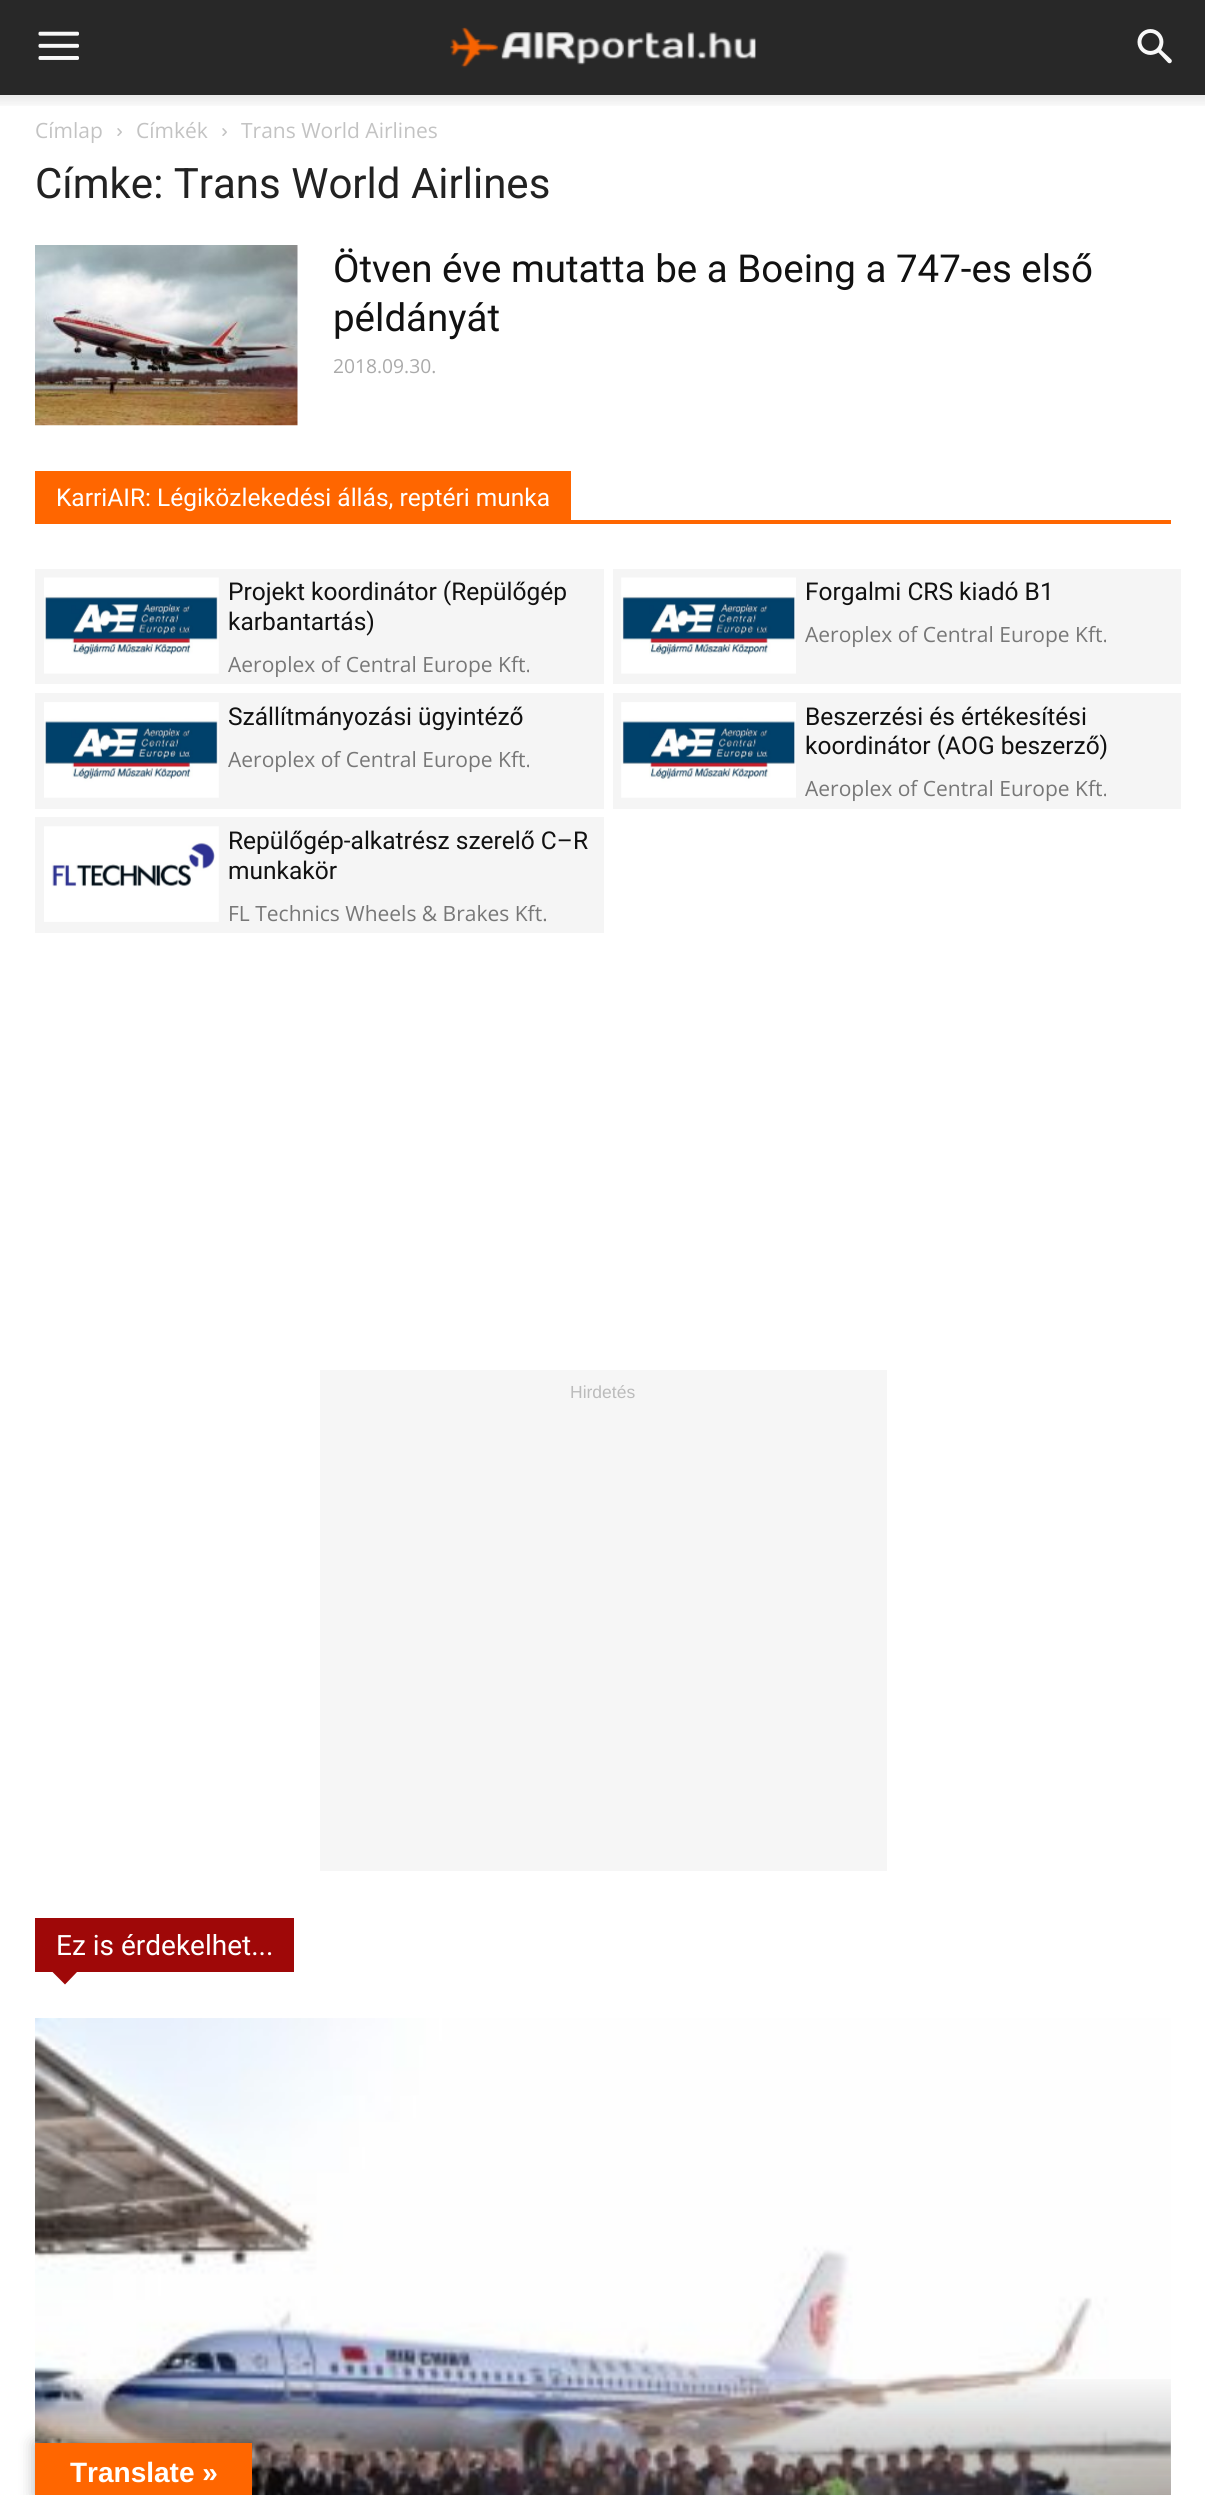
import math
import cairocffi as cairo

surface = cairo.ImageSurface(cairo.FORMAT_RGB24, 1205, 2495)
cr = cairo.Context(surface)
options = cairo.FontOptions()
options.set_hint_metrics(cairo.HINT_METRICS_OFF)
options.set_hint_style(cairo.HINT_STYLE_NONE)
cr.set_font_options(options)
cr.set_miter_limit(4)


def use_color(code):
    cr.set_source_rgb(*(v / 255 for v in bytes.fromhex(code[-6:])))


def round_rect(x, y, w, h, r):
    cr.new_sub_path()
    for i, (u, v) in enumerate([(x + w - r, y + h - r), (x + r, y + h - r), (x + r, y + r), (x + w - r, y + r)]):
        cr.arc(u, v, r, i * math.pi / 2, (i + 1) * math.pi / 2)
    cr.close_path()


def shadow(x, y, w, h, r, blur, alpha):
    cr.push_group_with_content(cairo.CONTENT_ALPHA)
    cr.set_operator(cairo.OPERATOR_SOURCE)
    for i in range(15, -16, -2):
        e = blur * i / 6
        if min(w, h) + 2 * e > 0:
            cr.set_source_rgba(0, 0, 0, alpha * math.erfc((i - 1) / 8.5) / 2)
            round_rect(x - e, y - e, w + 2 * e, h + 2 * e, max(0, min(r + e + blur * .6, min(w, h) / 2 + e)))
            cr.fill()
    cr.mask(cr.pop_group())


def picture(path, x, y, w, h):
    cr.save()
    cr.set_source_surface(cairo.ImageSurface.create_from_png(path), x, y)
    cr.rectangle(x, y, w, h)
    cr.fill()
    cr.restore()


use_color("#ffffff")
cr.paint()
use_color("#282828")
cr.rectangle(0, 0, 1205, 95)
cr.fill()
picture("img1.png", 38, 31, 41, 29)
picture("img2.png", 450, 27, 306, 41)
picture("img3.png", 1137, 29, 35, 35)
picture("img4.png", 0, 95, 1205, 11)
cr.select_font_face("Open Sans")
cr.set_font_size(21)
use_color("#c3c3c3")
cr.move_to(35, 138)
cr.show_text("Címlap")
picture("img5.png", 117, 128, 5, 8)
cr.move_to(136, 138)
cr.show_text("Címkék")
picture("img5.png", 222, 128, 5, 8)
cr.move_to(241, 138)
cr.show_text("Trans World Airlines")
cr.select_font_face("Roboto")
cr.set_font_size(42)
use_color("#222222")
cr.move_to(35, 198)
cr.show_text("Címke: Trans World Airlines")
picture("img6.png", 35, 245, 263, 181)
cr.set_font_size(38.5)
use_color("#111111")
cr.move_to(333, 282)
cr.show_text("Ötven éve mutatta be a Boeing a 747-es első")
cr.move_to(333, 331)
cr.show_text("példányát")
cr.select_font_face("Open Sans")
cr.set_font_size(19.25)
use_color("#aaaaaa")
cr.move_to(333, 373)
cr.show_text("2018.09.30.")
use_color("#ff6600")
cr.rectangle(35, 520, 1136, 4)
cr.fill()
cr.rectangle(35, 471, 536, 49)
cr.fill()
cr.select_font_face("Roboto")
cr.set_font_size(24.5)
use_color("#ffffff")
cr.move_to(56, 506)
cr.show_text("KarriAIR: Légiközlekedési állás, reptéri munka")
use_color("#f5f5f5")
cr.rectangle(35, 569, 569, 115)
cr.fill()
picture("img7.png", 44, 577, 175, 97)
use_color("#111111")
cr.move_to(228, 600)
cr.show_text("Projekt koordinátor (Repülőgép")
cr.move_to(228, 630)
cr.show_text("karbantartás)")
cr.select_font_face("Open Sans")
cr.set_font_size(21)
use_color("#777777")
cr.move_to(228, 672)
cr.show_text("Aeroplex of Central Europe Kft.")
use_color("#f5f5f5")
cr.rectangle(613, 569, 568, 115)
cr.fill()
picture("img8.png", 621, 577, 175, 97)
cr.select_font_face("Roboto")
cr.set_font_size(24.5)
use_color("#111111")
cr.move_to(805, 600)
cr.show_text("Forgalmi CRS kiadó B1")
cr.select_font_face("Open Sans")
cr.set_font_size(21)
use_color("#777777")
cr.move_to(805, 642)
cr.show_text("Aeroplex of Central Europe Kft.")
use_color("#f5f5f5")
cr.rectangle(35, 693, 569, 116)
cr.fill()
picture("img9.png", 44, 702, 175, 96)
cr.select_font_face("Roboto")
cr.set_font_size(24.5)
use_color("#111111")
cr.move_to(228, 725)
cr.show_text("Szállítmányozási ügyintéző")
cr.select_font_face("Open Sans")
cr.set_font_size(21)
use_color("#777777")
cr.move_to(228, 767)
cr.show_text("Aeroplex of Central Europe Kft.")
use_color("#f5f5f5")
cr.rectangle(613, 693, 568, 116)
cr.fill()
picture("img10.png", 621, 702, 175, 96)
cr.select_font_face("Roboto")
cr.set_font_size(24.5)
use_color("#111111")
cr.move_to(805, 725)
cr.show_text("Beszerzési és értékesítési")
cr.move_to(805, 754)
cr.show_text("koordinátor (AOG beszerző)")
cr.select_font_face("Open Sans")
cr.set_font_size(21)
use_color("#777777")
cr.move_to(805, 796)
cr.show_text("Aeroplex of Central Europe Kft.")
use_color("#f5f5f5")
cr.rectangle(35, 817, 569, 116)
cr.fill()
picture("img11.png", 44, 826, 175, 96)
cr.select_font_face("Roboto")
cr.set_font_size(24.5)
use_color("#111111")
cr.move_to(228, 849)
cr.show_text("Repülőgép-alkatrész szerelő C–R")
cr.move_to(228, 879)
cr.show_text("munkakör")
cr.select_font_face("Open Sans")
cr.set_font_size(21)
use_color("#777777")
cr.move_to(228, 921)
cr.show_text("FL Technics Wheels & Brakes Kft.")
use_color("#f6f6f6")
cr.rectangle(320, 1370, 567, 501)
cr.fill()
cr.select_font_face("Liberation Sans")
cr.set_font_size(17.5)
use_color("#bbbbbb")
cr.move_to(570, 1398)
cr.show_text("Hirdetés")
use_color("#9f0808")
cr.rectangle(35, 1918, 259, 54)
cr.fill()
cr.select_font_face("Roboto")
cr.set_font_size(28)
use_color("#ffffff")
cr.move_to(56, 1955)
cr.show_text("Ez is érdekelhet...")
use_color("#9f0808")
cr.new_path()
cr.move_to(52.5, 1972)
cr.line_to(77, 1972)
cr.line_to(65, 1984.5)
cr.close_path()
cr.fill()
picture("img12.png", 35, 2018, 1136, 477)
gradient = cairo.LinearGradient(603, 2370, 603, 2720)
gradient.add_color_stop_rgba(0, 0, 0, 0, 0)
gradient.add_color_stop_rgba(1, 0, 0, 0, 0.85)
cr.set_source(gradient)
cr.rectangle(35, 2379, 1136, 116)
cr.fill()
use_color("#000000")
shadow(35, 2443, 217, 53, 0, 8, 0.3)
use_color("#ff6600")
cr.rectangle(35, 2443, 217, 52)
cr.fill()
cr.select_font_face("Liberation Sans", cairo.FONT_SLANT_NORMAL, cairo.FONT_WEIGHT_BOLD)
use_color("#ffffff")
cr.move_to(70, 2482)
cr.show_text("Translate »")
surface.write_to_png("result.png")
